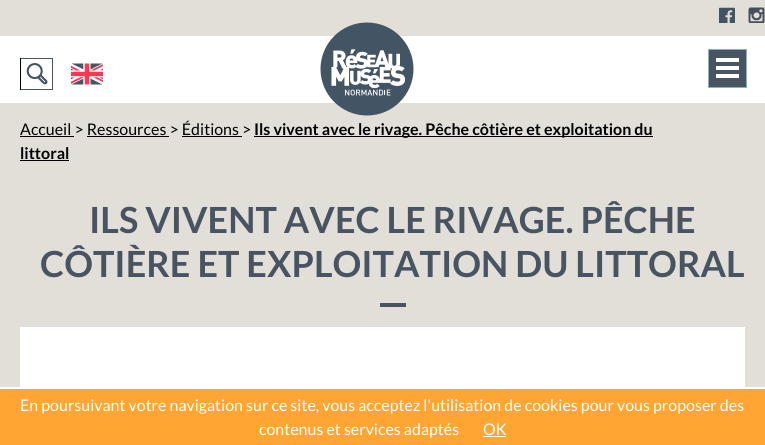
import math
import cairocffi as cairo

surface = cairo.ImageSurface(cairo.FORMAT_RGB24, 765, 445)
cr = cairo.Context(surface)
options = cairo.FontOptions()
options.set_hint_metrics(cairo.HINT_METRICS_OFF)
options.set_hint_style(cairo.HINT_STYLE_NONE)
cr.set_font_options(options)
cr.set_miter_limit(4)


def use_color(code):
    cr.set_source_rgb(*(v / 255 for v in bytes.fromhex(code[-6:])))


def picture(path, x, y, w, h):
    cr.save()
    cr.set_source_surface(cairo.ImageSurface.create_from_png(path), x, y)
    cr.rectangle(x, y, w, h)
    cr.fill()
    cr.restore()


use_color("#e1dfd8")
cr.paint()
picture("img1.png", 719, 7, 16, 16)
picture("img2.png", 748, 7, 17, 16)
use_color("#ffffff")
cr.rectangle(0, 36, 765, 67)
cr.fill()
cr.rectangle(20.5, 58.5, 32, 31)
use_color("#495463")
cr.set_line_width(1)
cr.stroke()
picture("img3.png", 26, 63, 22, 22)
use_color("#000000")
cr.rectangle(20, 58, 1, 32)
cr.fill()
picture("img4.png", 71, 63, 32, 22)
picture("img5.png", 320, 22, 94, 94)
use_color("#495463")
cr.rectangle(708.5, 49.5, 38, 38)
cr.fill_preserve()
use_color("#82b7b5")
cr.stroke()
use_color("#ffffff")
cr.rectangle(716, 58, 23, 4)
cr.fill()
cr.rectangle(716, 66, 23, 4)
cr.fill()
cr.rectangle(716, 74, 23, 4)
cr.fill()
cr.select_font_face("Lato")
cr.set_font_size(16)
use_color("#000000")
cr.move_to(20, 135)
cr.show_text("Accueil > Ressources > Éditions >")
cr.rectangle(20, 136, 54, 1)
cr.fill()
cr.rectangle(254, 136, 399, 1)
cr.fill()
cr.select_font_face("Lato", cairo.FONT_SLANT_NORMAL, cairo.FONT_WEIGHT_BOLD)
cr.move_to(254, 135)
cr.show_text("Ils vivent avec le rivage. Pêche côtière et exploitation du")
cr.rectangle(87, 136, 82, 1)
cr.fill()
cr.rectangle(182, 136, 60, 1)
cr.fill()
cr.move_to(20, 159)
cr.show_text("littoral")
cr.rectangle(20, 160, 49, 1)
cr.fill()
cr.set_font_size(36)
use_color("#495463")
cr.move_to(89, 233)
cr.show_text("ILS VIVENT AVEC LE RIVAGE. PÊCHE")
cr.move_to(40, 277)
cr.show_text("CÔTIÈRE ET EXPLOITATION DU LITTORAL")
cr.rectangle(380, 303, 26, 4)
cr.fill()
use_color("#ffffff")
cr.rectangle(20, 327, 725, 60)
cr.fill()
use_color("#ffa533")
cr.rectangle(0, 389, 765, 56)
cr.fill()
use_color("#ffffff")
cr.rectangle(0, 387, 765, 2)
cr.fill()
cr.select_font_face("Lato")
cr.set_font_size(16)
cr.move_to(20, 411)
cr.show_text("En poursuivant votre navigation sur ce site, vous acceptez l'utilisation de cookies pour vous proposer des")
cr.move_to(259, 435)
cr.show_text("contenus et services adaptés")
cr.move_to(483, 435)
cr.show_text("OK")
cr.rectangle(483, 436, 23, 1)
cr.fill()
surface.write_to_png("result.png")
